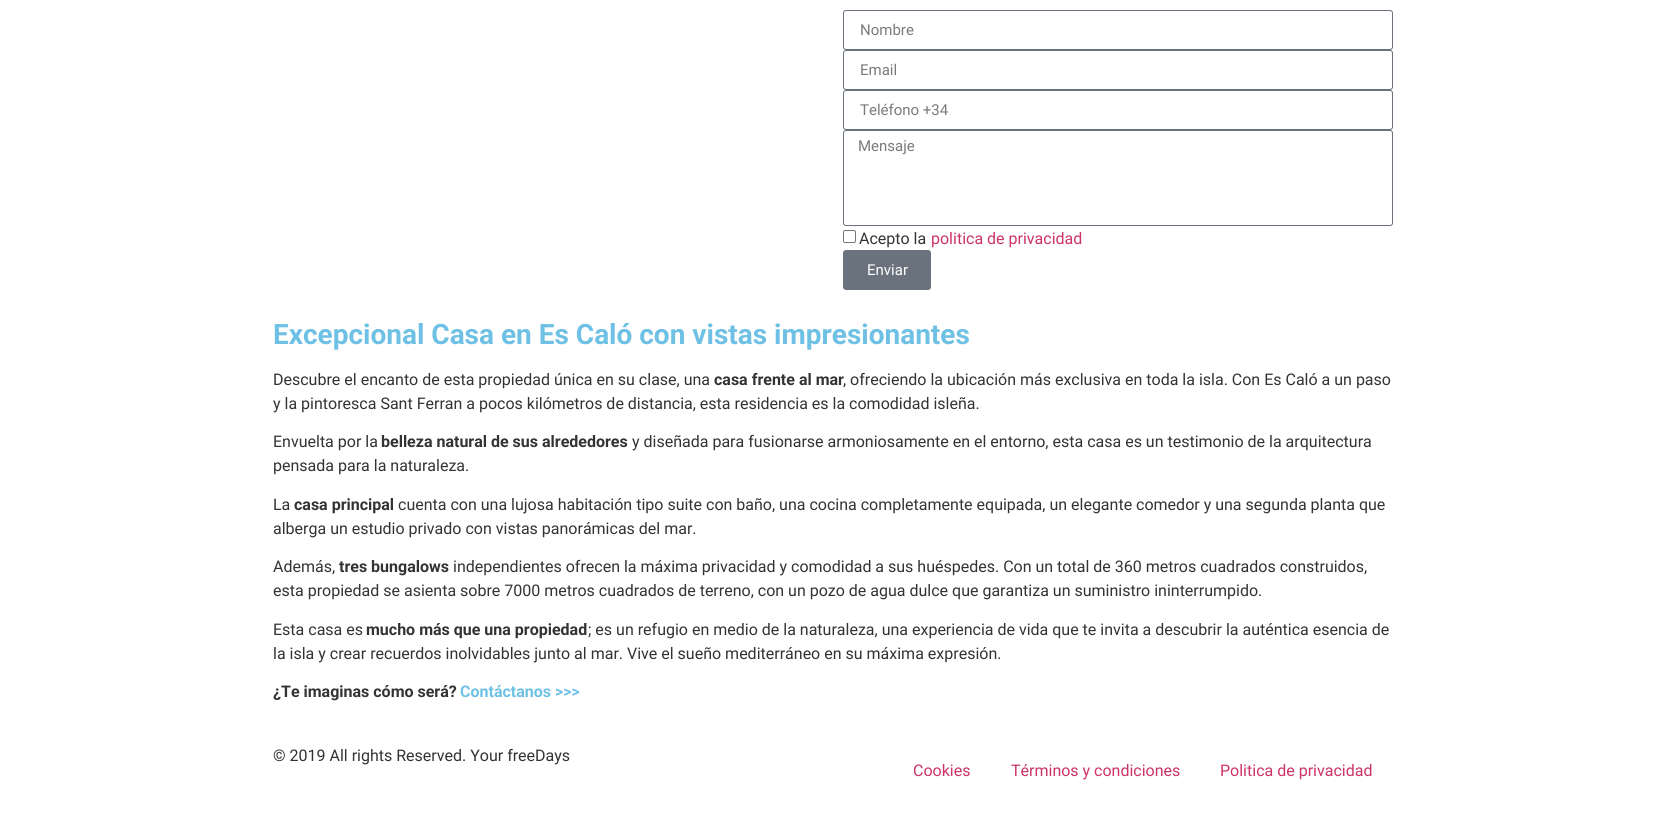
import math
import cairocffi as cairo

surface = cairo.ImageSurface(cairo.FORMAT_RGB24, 1665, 814)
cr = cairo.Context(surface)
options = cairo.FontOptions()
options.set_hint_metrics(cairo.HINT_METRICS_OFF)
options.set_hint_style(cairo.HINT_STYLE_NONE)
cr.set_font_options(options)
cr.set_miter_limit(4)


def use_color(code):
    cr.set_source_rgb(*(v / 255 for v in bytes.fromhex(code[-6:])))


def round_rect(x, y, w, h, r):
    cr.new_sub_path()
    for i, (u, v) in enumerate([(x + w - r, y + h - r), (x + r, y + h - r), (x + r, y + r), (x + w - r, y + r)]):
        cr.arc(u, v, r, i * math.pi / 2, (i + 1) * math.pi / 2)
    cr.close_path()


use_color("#ffffff")
cr.paint()
round_rect(843.5, 10.5, 549, 39, 2.5)
use_color("#69727d")
cr.set_line_width(1)
cr.stroke()
cr.select_font_face("Roboto")
cr.set_font_size(15)
use_color("#797a7c")
cr.move_to(860, 35)
cr.show_text("Nombre")
round_rect(843.5, 50.5, 549, 39, 2.5)
use_color("#69727d")
cr.stroke()
use_color("#797a7c")
cr.move_to(860, 75)
cr.show_text("Email")
round_rect(843.5, 90.5, 549, 39, 2.5)
use_color("#69727d")
cr.stroke()
use_color("#797a7c")
cr.move_to(860, 115)
cr.show_text("Teléfono +34")
round_rect(843.5, 130.5, 549, 95, 2.5)
use_color("#69727d")
cr.stroke()
use_color("#797a7c")
cr.move_to(858, 151)
cr.show_text("Mensaje")
round_rect(843.5, 230.5, 12, 12, 1.5)
use_color("#767676")
cr.stroke()
cr.set_font_size(16)
use_color("#333333")
cr.move_to(859, 244)
cr.show_text("Acepto la")
use_color("#cc3366")
cr.move_to(931, 244)
cr.show_text("politica de privacidad")
use_color("#69727d")
round_rect(843, 250, 88, 40, 3)
cr.fill()
cr.set_font_size(15)
use_color("#ffffff")
cr.move_to(867, 275)
cr.show_text("Enviar")
cr.select_font_face("Roboto", cairo.FONT_SLANT_NORMAL, cairo.FONT_WEIGHT_BOLD)
cr.set_font_size(28)
use_color("#6ec1e4")
cr.move_to(273, 344)
cr.show_text("Excepcional Casa en Es Caló con vistas impresionantes")
cr.select_font_face("Roboto")
cr.set_font_size(16)
use_color("#333333")
cr.move_to(273, 385)
cr.show_text("Descubre el encanto de esta propiedad única en su clase, una")
cr.select_font_face("Roboto", cairo.FONT_SLANT_NORMAL, cairo.FONT_WEIGHT_BOLD)
cr.move_to(714, 385)
cr.show_text("casa frente al mar")
cr.select_font_face("Roboto")
cr.move_to(843, 385)
cr.show_text(", ofreciendo la ubicación más exclusiva en toda la isla. Con Es Caló a un paso")
cr.move_to(273, 409)
cr.show_text("y la pintoresca Sant Ferran a pocos kilómetros de distancia, esta residencia es la comodidad isleña.")
cr.move_to(273, 447)
cr.show_text("Envuelta por la")
cr.select_font_face("Roboto", cairo.FONT_SLANT_NORMAL, cairo.FONT_WEIGHT_BOLD)
cr.move_to(381, 447)
cr.show_text("belleza natural de sus alrededores")
cr.select_font_face("Roboto")
cr.move_to(632, 447)
cr.show_text("y diseñada para fusionarse armoniosamente en el entorno, esta casa es un testimonio de la arquitectura")
cr.move_to(273, 471)
cr.show_text("pensada para la naturaleza.")
cr.move_to(273, 510)
cr.show_text("La")
cr.select_font_face("Roboto", cairo.FONT_SLANT_NORMAL, cairo.FONT_WEIGHT_BOLD)
cr.move_to(294, 510)
cr.show_text("casa principal")
cr.select_font_face("Roboto")
cr.move_to(398, 510)
cr.show_text("cuenta con una lujosa habitación tipo suite con baño, una cocina completamente equipada, un elegante comedor y una segunda planta que")
cr.move_to(273, 534)
cr.show_text("alberga un estudio privado con vistas panorámicas del mar.")
cr.move_to(273, 572)
cr.show_text("Además,")
cr.select_font_face("Roboto", cairo.FONT_SLANT_NORMAL, cairo.FONT_WEIGHT_BOLD)
cr.move_to(339, 572)
cr.show_text("tres bungalows")
cr.select_font_face("Roboto")
cr.move_to(453, 572)
cr.show_text("independientes ofrecen la máxima privacidad y comodidad a sus huéspedes. Con un total de 360 metros cuadrados construidos,")
cr.move_to(273, 596)
cr.show_text("esta propiedad se asienta sobre 7000 metros cuadrados de terreno, con un pozo de agua dulce que garantiza un suministro ininterrumpido.")
cr.move_to(273, 635)
cr.show_text("Esta casa es")
cr.select_font_face("Roboto", cairo.FONT_SLANT_NORMAL, cairo.FONT_WEIGHT_BOLD)
cr.move_to(366, 635)
cr.show_text("mucho más que una propiedad")
cr.select_font_face("Roboto")
cr.move_to(588, 635)
cr.show_text("; es un refugio en medio de la naturaleza, una experiencia de vida que te invita a descubrir la auténtica esencia de")
cr.move_to(273, 659)
cr.show_text("la isla y crear recuerdos inolvidables junto al mar. Vive el sueño mediterráneo en su máxima expresión.")
cr.select_font_face("Roboto", cairo.FONT_SLANT_NORMAL, cairo.FONT_WEIGHT_BOLD)
cr.move_to(273, 697)
cr.show_text("¿Te imaginas cómo será?")
use_color("#6ec1e4")
cr.move_to(460, 697)
cr.show_text("Contáctanos >>>")
cr.select_font_face("Roboto")
use_color("#333333")
cr.move_to(273, 761)
cr.show_text("© 2019 All rights Reserved. Your freeDays")
use_color("#cc3366")
cr.move_to(913, 776)
cr.show_text("Cookies")
cr.move_to(1011, 776)
cr.show_text("Términos y condiciones")
cr.move_to(1220, 776)
cr.show_text("Politica de privacidad")
surface.write_to_png("result.png")
